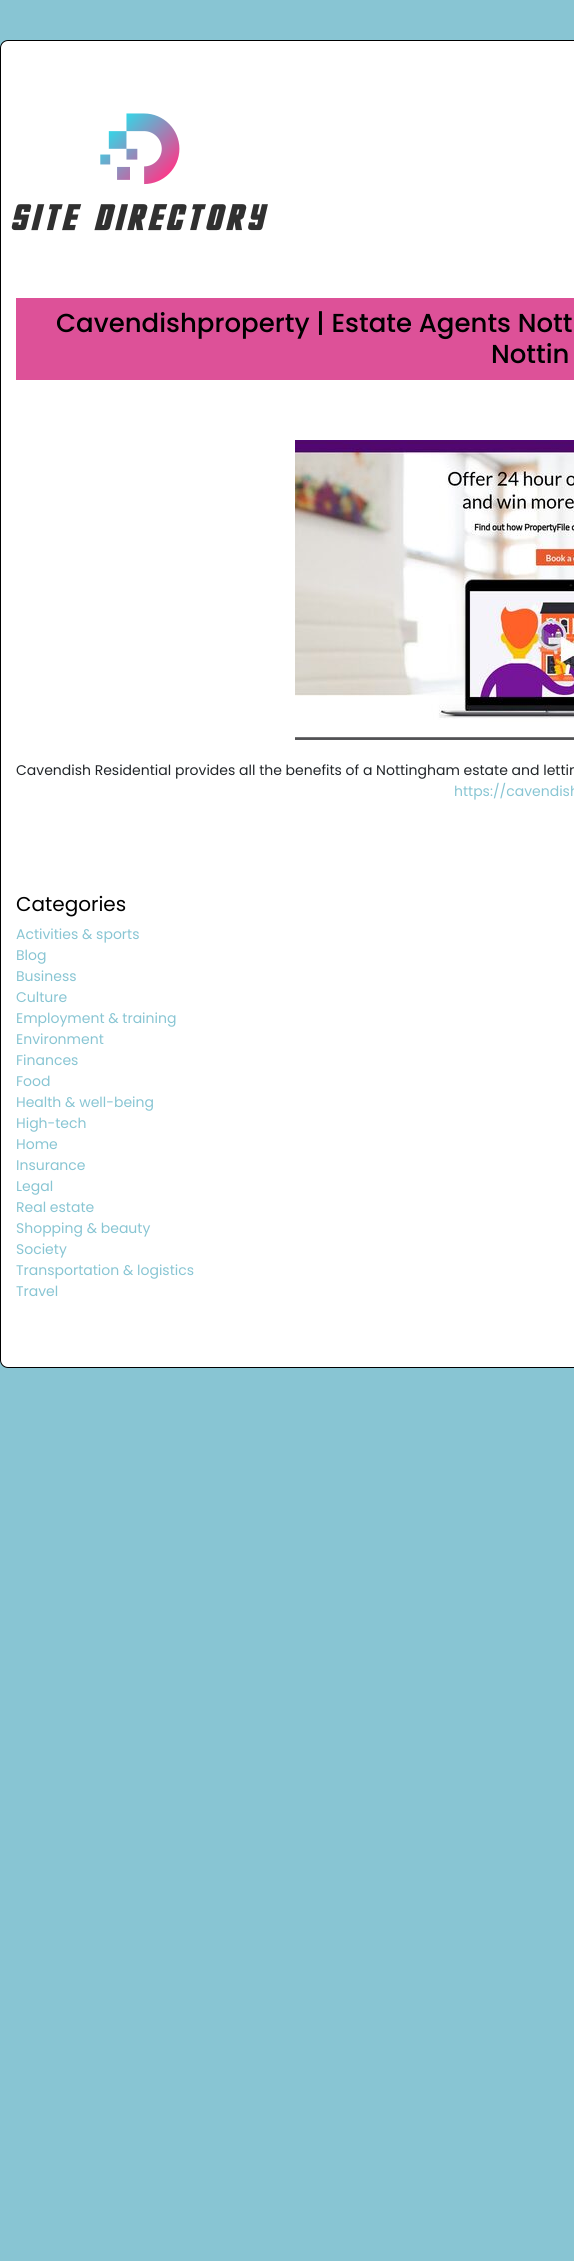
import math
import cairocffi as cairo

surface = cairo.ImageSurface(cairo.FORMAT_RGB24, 574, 2261)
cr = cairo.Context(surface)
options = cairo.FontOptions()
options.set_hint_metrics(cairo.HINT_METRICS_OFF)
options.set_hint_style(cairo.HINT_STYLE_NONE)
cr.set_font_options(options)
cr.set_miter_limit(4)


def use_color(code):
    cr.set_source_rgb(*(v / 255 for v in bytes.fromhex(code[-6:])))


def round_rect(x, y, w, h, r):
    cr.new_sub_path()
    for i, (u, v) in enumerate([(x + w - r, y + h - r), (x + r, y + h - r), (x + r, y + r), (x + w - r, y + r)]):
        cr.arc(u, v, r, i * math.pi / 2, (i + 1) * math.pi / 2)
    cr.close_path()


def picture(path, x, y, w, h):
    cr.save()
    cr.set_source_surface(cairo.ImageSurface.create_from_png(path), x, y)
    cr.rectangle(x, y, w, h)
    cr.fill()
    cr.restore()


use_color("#88c5d3")
cr.paint()
use_color("#ffffff")
round_rect(0.5, 40.5, 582, 1327, 7.5)
cr.fill_preserve()
use_color("#000000")
cr.set_line_width(1)
cr.stroke()
picture("img1.png", 11, 113, 257, 118)
use_color("#dd5198")
cr.rectangle(16, 298, 558, 82)
cr.fill()
cr.select_font_face("Poppins Medium")
cr.set_font_size(26)
use_color("#000000")
cr.move_to(56, 332)
cr.show_text("Cavendishproperty | Estate Agents Nott")
cr.move_to(491, 363)
cr.show_text("Nottin")
picture("img2.png", 295, 440, 279, 300)
cr.select_font_face("Poppins")
cr.set_font_size(14)
use_color("#212529")
cr.move_to(16, 775)
cr.show_text("Cavendish Residential provides all the benefits of a Nottingham estate and lettin")
use_color("#88c5d3")
cr.move_to(454, 796)
cr.show_text("https://cavendish")
cr.set_font_size(20)
use_color("#000000")
cr.move_to(16, 911)
cr.show_text("Categories")
cr.set_font_size(14)
use_color("#88c5d3")
cr.move_to(16, 939)
cr.show_text("Activities & sports")
cr.move_to(16, 960)
cr.show_text("Blog")
cr.move_to(16, 981)
cr.show_text("Business")
cr.move_to(16, 1002)
cr.show_text("Culture")
cr.move_to(16, 1023)
cr.show_text("Employment & training")
cr.move_to(16, 1044)
cr.show_text("Environment")
cr.move_to(16, 1065)
cr.show_text("Finances")
cr.move_to(16, 1086)
cr.show_text("Food")
cr.move_to(16, 1107)
cr.show_text("Health & well-being")
cr.move_to(16, 1128)
cr.show_text("High-tech")
cr.move_to(16, 1149)
cr.show_text("Home")
cr.move_to(16, 1170)
cr.show_text("Insurance")
cr.move_to(16, 1191)
cr.show_text("Legal")
cr.move_to(16, 1212)
cr.show_text("Real estate")
cr.move_to(16, 1233)
cr.show_text("Shopping & beauty")
cr.move_to(16, 1254)
cr.show_text("Society")
cr.move_to(16, 1275)
cr.show_text("Transportation & logistics")
cr.move_to(16, 1296)
cr.show_text("Travel")
surface.write_to_png("result.png")
